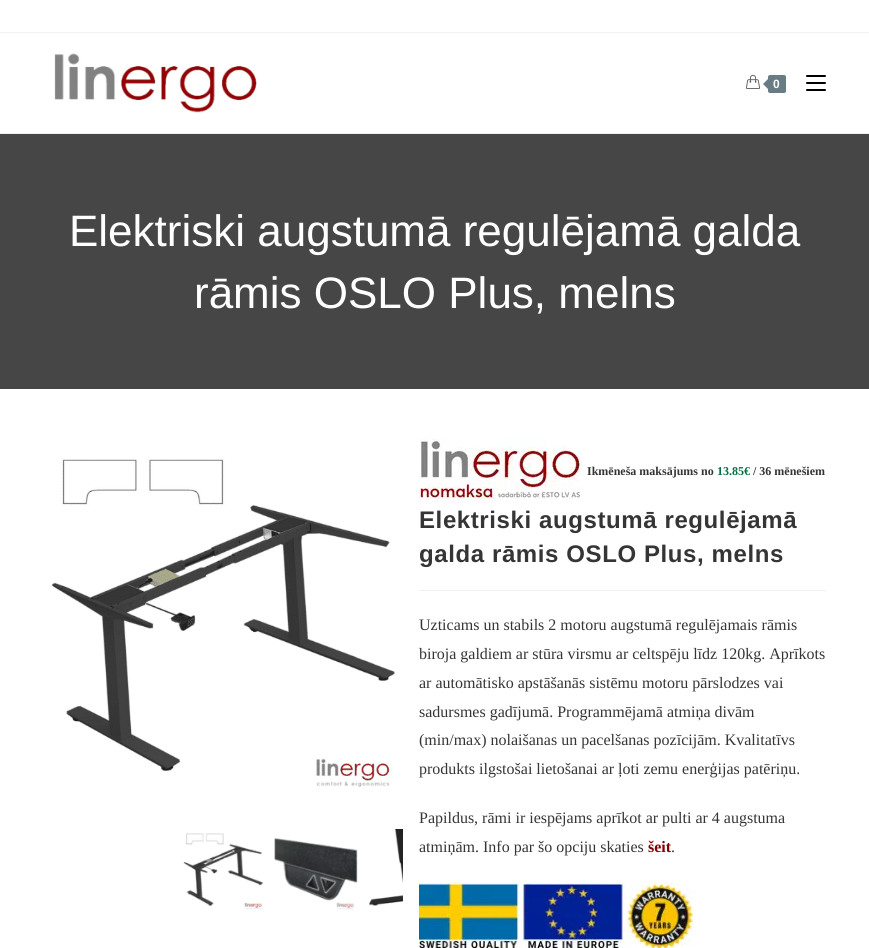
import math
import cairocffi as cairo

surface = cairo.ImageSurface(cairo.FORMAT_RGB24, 869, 948)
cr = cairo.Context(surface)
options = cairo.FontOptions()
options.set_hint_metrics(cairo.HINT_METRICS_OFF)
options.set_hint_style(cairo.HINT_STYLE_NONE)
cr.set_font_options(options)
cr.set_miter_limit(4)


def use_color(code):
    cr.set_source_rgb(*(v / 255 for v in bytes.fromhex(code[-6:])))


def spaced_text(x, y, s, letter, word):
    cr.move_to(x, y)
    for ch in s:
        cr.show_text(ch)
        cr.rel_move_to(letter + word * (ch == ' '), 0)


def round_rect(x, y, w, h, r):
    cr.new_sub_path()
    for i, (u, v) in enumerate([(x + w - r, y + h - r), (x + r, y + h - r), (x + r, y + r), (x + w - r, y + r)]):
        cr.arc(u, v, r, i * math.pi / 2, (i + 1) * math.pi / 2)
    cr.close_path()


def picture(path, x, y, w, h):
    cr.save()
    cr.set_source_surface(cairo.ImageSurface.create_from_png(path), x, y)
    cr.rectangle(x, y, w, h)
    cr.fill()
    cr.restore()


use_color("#ffffff")
cr.paint()
use_color("#f1f1f1")
cr.rectangle(0, 32, 869, 1)
cr.fill()
cr.rectangle(0, 133, 869, 1)
cr.fill()
picture("img1.png", 54, 53, 203, 60)
picture("img2.png", 746, 74, 14, 15)
use_color("#697b83")
round_rect(768, 75, 18, 18, 2)
cr.fill()
cr.new_path()
cr.move_to(768, 79)
cr.line_to(768, 89)
cr.line_to(763, 84)
cr.close_path()
cr.fill()
cr.select_font_face("Liberation Sans", cairo.FONT_SLANT_NORMAL, cairo.FONT_WEIGHT_BOLD)
cr.set_font_size(12)
use_color("#ffffff")
spaced_text(773, 88, "0", 1, 0)
use_color("#000000")
round_rect(806, 89, 20, 2, 1)
cr.fill()
round_rect(806, 75, 20, 2, 1)
cr.fill()
round_rect(806, 82, 20, 2, 1)
cr.fill()
use_color("#464646")
cr.rectangle(0, 134, 869, 255)
cr.fill()
cr.select_font_face("Liberation Sans")
cr.set_font_size(44)
use_color("#ffffff")
cr.move_to(69, 246)
cr.show_text("Elektriski augstumā regulējamā galda")
cr.move_to(194, 308)
cr.show_text("rāmis OSLO Plus, melns")
picture("img3.png", 51, 459, 344, 328)
picture("img4.png", 183, 833, 81, 77)
picture("img5.png", 274, 838, 84, 72)
picture("img6.png", 369, 829, 34, 77)
picture("img7.png", 419, 439, 164, 64)
cr.select_font_face("Liberation Serif", cairo.FONT_SLANT_NORMAL, cairo.FONT_WEIGHT_BOLD)
cr.set_font_size(12)
use_color("#353535")
cr.move_to(587, 475)
cr.show_text("Ikmēneša maksājums no")
use_color("#006f43")
cr.move_to(717, 475)
cr.show_text("13.85€")
use_color("#353535")
cr.move_to(753, 475)
cr.show_text("/ 36 mēnešiem")
use_color("#f1f1f1")
cr.rectangle(419, 590, 407, 1)
cr.fill()
cr.select_font_face("Liberation Sans", cairo.FONT_SLANT_NORMAL, cairo.FONT_WEIGHT_BOLD)
cr.set_font_size(24)
use_color("#353535")
spaced_text(419, 528, "Elektriski augstumā regulējamā", 0.6, 0)
spaced_text(419, 562, "galda rāmis OSLO Plus, melns", 0.6, 0)
cr.select_font_face("Liberation Serif")
cr.set_font_size(16)
cr.move_to(419, 630)
cr.show_text("Uzticams un stabils 2 motoru augstumā regulējamais rāmis")
cr.move_to(419, 659)
cr.show_text("biroja galdiem ar stūra virsmu ar celtspēju līdz 120kg. Aprīkots")
cr.move_to(419, 688)
cr.show_text("ar automātisko apstāšanās sistēmu motoru pārslodzes vai")
cr.move_to(419, 717)
cr.show_text("sadursmes gadījumā. Programmējamā atmiņa divām")
cr.move_to(419, 745)
cr.show_text("(min/max) nolaišanas un pacelšanas pozīcijām. Kvalitatīvs")
cr.move_to(419, 774)
cr.show_text("produkts ilgstošai lietošanai ar ļoti zemu enerģijas patēriņu.")
cr.move_to(419, 823)
cr.show_text("Papildus, rāmi ir iespējams aprīkot ar pulti ar 4 augstuma")
cr.move_to(419, 852)
cr.show_text("atmiņām. Info par šo opciju skaties")
cr.select_font_face("Liberation Serif", cairo.FONT_SLANT_NORMAL, cairo.FONT_WEIGHT_BOLD)
use_color("#800000")
cr.move_to(648, 852)
cr.show_text("šeit")
cr.select_font_face("Liberation Serif")
use_color("#353535")
cr.move_to(671, 852)
cr.show_text(".")
picture("img8.png", 419, 882, 277, 66)
surface.write_to_png("result.png")
